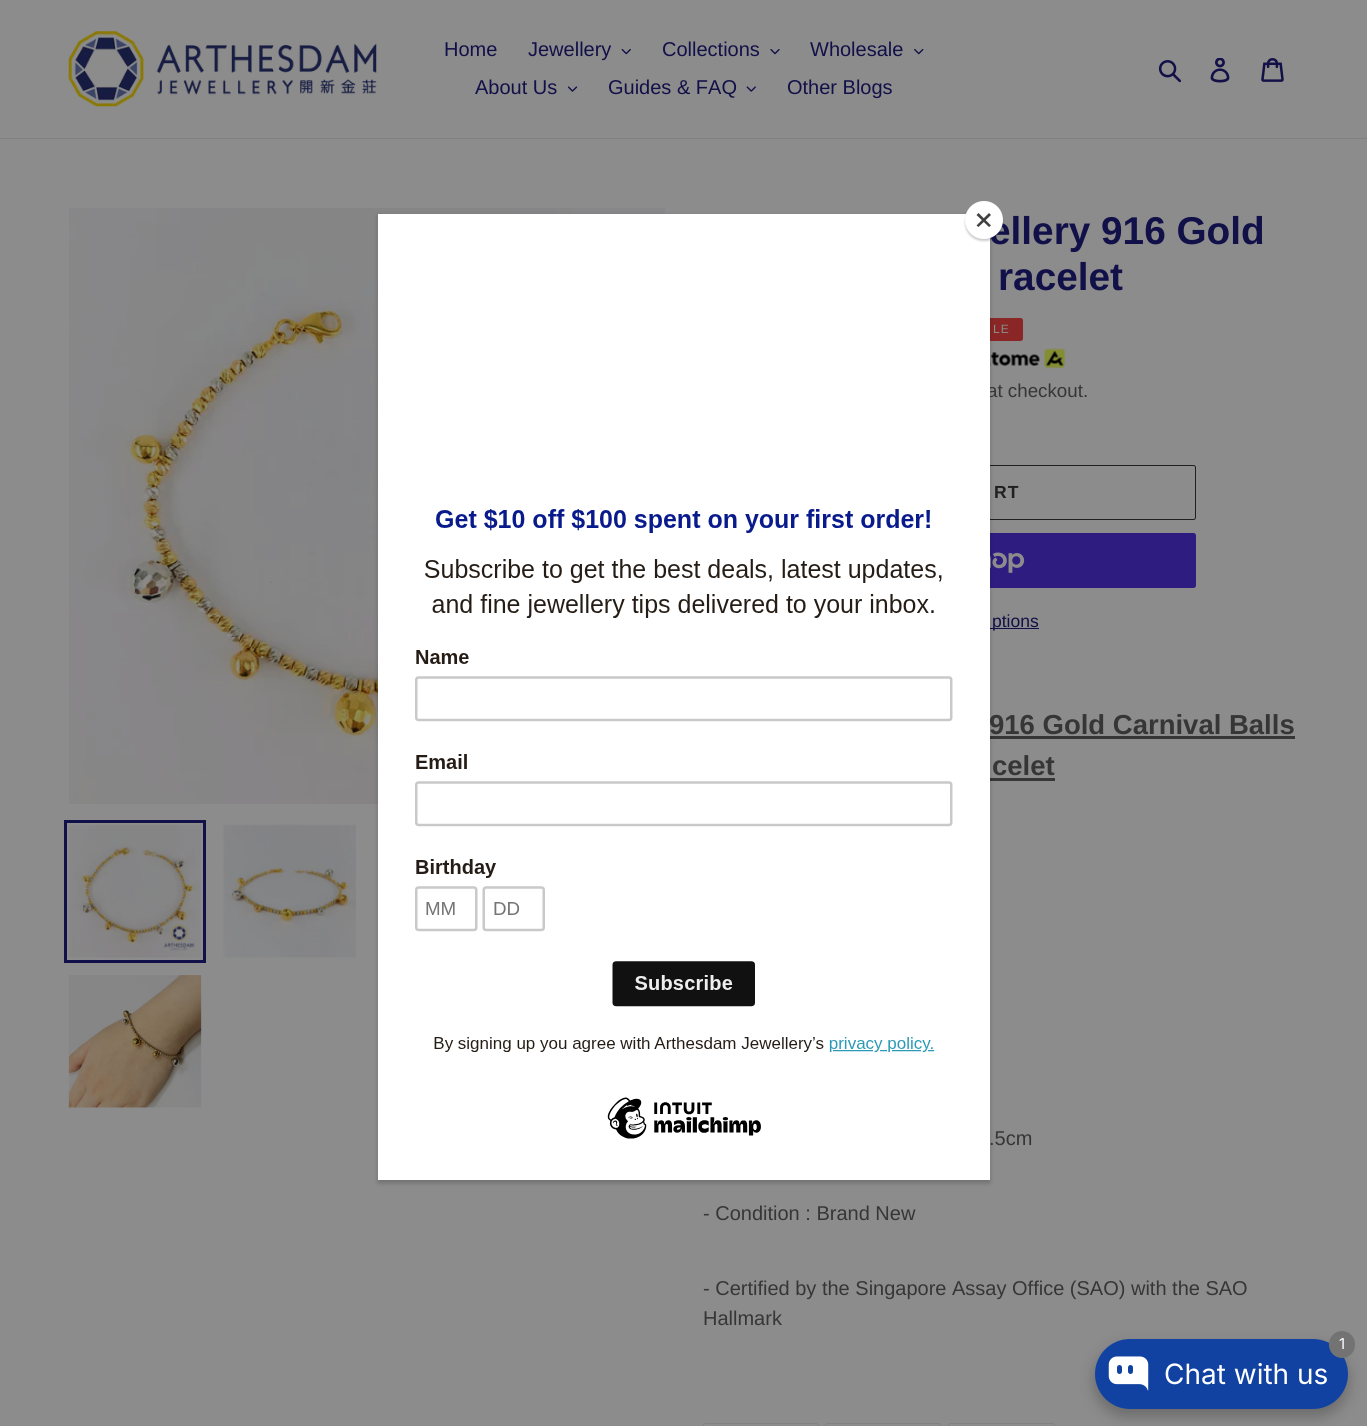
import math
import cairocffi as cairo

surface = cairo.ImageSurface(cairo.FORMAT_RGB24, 1367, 1426)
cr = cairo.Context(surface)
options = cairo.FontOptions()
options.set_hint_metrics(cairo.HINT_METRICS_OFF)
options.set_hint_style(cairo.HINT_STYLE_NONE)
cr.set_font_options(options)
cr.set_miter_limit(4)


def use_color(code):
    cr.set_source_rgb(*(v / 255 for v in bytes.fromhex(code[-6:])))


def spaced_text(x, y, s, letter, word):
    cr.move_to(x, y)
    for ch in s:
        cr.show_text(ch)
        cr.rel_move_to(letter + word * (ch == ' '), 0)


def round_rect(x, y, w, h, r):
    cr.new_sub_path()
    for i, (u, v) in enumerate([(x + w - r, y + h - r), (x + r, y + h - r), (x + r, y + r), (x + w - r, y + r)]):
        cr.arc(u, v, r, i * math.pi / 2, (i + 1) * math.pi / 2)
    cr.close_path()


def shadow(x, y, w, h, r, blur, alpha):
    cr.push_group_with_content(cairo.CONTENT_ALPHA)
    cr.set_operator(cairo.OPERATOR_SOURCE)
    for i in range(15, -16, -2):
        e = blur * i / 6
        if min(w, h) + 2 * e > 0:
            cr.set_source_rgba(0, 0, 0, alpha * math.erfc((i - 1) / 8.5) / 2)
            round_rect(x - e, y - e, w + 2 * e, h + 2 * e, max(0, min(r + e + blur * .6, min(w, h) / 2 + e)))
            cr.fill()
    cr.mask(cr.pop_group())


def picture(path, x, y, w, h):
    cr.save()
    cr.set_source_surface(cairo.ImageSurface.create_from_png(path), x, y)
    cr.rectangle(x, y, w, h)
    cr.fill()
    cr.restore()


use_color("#8c8c8c")
cr.paint()
use_color("#818181")
cr.rectangle(0, 138, 1367, 1)
cr.fill()
picture("img1.png", 68, 31, 309, 76)
cr.select_font_face("Liberation Sans")
cr.set_font_size(20)
use_color("#121048")
cr.move_to(444, 56)
cr.show_text("Home")
cr.move_to(528, 56)
cr.show_text("Jewellery")
picture("img2.png", 621, 48, 10, 7)
cr.move_to(662, 56)
cr.show_text("Collections")
picture("img3.png", 770, 49, 10, 6)
cr.move_to(810, 56)
cr.show_text("Wholesale")
picture("img4.png", 914, 48, 10, 7)
cr.move_to(475, 94)
cr.show_text("About Us")
picture("img5.png", 568, 86, 10, 6)
cr.move_to(608, 94)
cr.show_text("Guides & FAQ")
picture("img6.png", 746, 86, 10, 6)
cr.move_to(787, 94)
cr.show_text("Other Blogs")
picture("img7.png", 1158, 60, 23, 23)
picture("img8.png", 1210, 58, 20, 25)
picture("img9.png", 1261, 58, 23, 24)
picture("img11.png", 69, 208, 596, 596)
use_color("#8a2626")
round_rect(963.5, 318.5, 59, 22, 2)
cr.fill_preserve()
cr.set_line_width(1)
cr.stroke()
picture("img15.png", 990, 348, 76, 21)
round_rect(709.5, 465.5, 486, 54, 2)
use_color("#202020")
cr.stroke()
use_color("#2e1c81")
round_rect(709, 533, 487, 55, 2.5)
cr.fill()
picture("img16.png", 990, 552, 35, 21)
use_color("#121048")
cr.rectangle(990, 628, 49, 1)
cr.fill()
use_color("#363636")
cr.rectangle(990, 736, 305, 3)
cr.fill()
cr.rectangle(990, 778, 65, 3)
cr.fill()
use_color("#000000")
shadow(378, 216, 612, 967, 0, 2.5, 0.2)
cr.set_font_size(18.75)
use_color("#363636")
cr.move_to(987, 397)
cr.show_text("at checkout.")
picture("img10.png", 378, 214, 612, 966)
use_color("#000000")
shadow(965, 204, 38, 37, 18.5, 1, 0.2)
cr.select_font_face("Liberation Sans", cairo.FONT_SLANT_NORMAL, cairo.FONT_WEIGHT_BOLD)
cr.set_font_size(38.75)
use_color("#121048")
cr.move_to(989, 244)
cr.show_text("ellery 916 Gold")
use_color("#ffffff")
cr.new_path()
cr.arc(984, 220, 19, 0, 2 * math.pi)
cr.fill()
use_color("#414141")
cr.new_path()
cr.move_to(989, 213)
cr.line_to(991, 215)
cr.line_to(978.5, 227)
cr.line_to(976.5, 225.5)
cr.close_path()
cr.fill()
cr.new_path()
cr.move_to(976.5, 215)
cr.line_to(978.5, 213)
cr.line_to(991, 225.5)
cr.line_to(989, 227)
cr.close_path()
cr.fill()
cr.rectangle(65.5, 821.5, 139, 140)
use_color("#121048")
cr.set_line_width(3)
cr.stroke()
picture("img12.png", 68, 824, 133, 134)
picture("img13.png", 223, 824, 133, 134)
picture("img14.png", 68, 975, 134, 133)
cr.move_to(998, 290)
cr.show_text("racelet")
cr.select_font_face("Liberation Sans")
cr.set_font_size(12)
use_color("#8c8c8c")
spaced_text(993, 333, "LE", 1, 0)
cr.select_font_face("Liberation Sans", cairo.FONT_SLANT_NORMAL, cairo.FONT_WEIGHT_BOLD)
cr.set_font_size(17.5)
use_color("#202020")
spaced_text(994, 498, "RT", 1, 0)
cr.select_font_face("Liberation Sans")
use_color("#121048")
cr.move_to(992, 627)
cr.show_text("ptions")
cr.select_font_face("Liberation Sans", cairo.FONT_SLANT_NORMAL, cairo.FONT_WEIGHT_BOLD)
cr.set_font_size(27.5)
use_color("#363636")
cr.move_to(989, 734)
cr.show_text("916 Gold Carnival Balls")
cr.move_to(992, 775)
cr.show_text("celet")
cr.select_font_face("Liberation Sans")
cr.set_font_size(20)
cr.move_to(989, 1145)
cr.show_text(".5cm")
cr.move_to(703, 1220)
cr.show_text("- Condition : Brand New")
cr.move_to(703, 1295)
cr.show_text("- Certified by the Singapore Assay Office (SAO) with the SAO")
cr.move_to(703, 1325)
cr.show_text("Hallmark")
round_rect(703.5, 1423.5, 115, 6, 2)
use_color("#818181")
cr.set_line_width(1)
cr.stroke()
round_rect(825.5, 1423.5, 115, 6, 2)
cr.stroke()
round_rect(948.5, 1423.5, 106, 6, 2)
cr.stroke()
use_color("#000000")
shadow(1095, 1346, 253, 70, 35, 7.5, 0.25)
use_color("#1142a2")
round_rect(1095, 1339, 253, 70, 35)
cr.fill()
use_color("#737373")
round_rect(1329, 1331, 26, 27, 13)
cr.fill()
cr.select_font_face("Inter")
cr.set_font_size(15)
use_color("#ffffff")
cr.move_to(1339, 1349)
cr.show_text("1")
picture("img17.png", 1108, 1356, 41, 35)
cr.set_font_size(28)
cr.move_to(1164, 1384)
cr.show_text("Chat with us")
surface.write_to_png("result.png")
